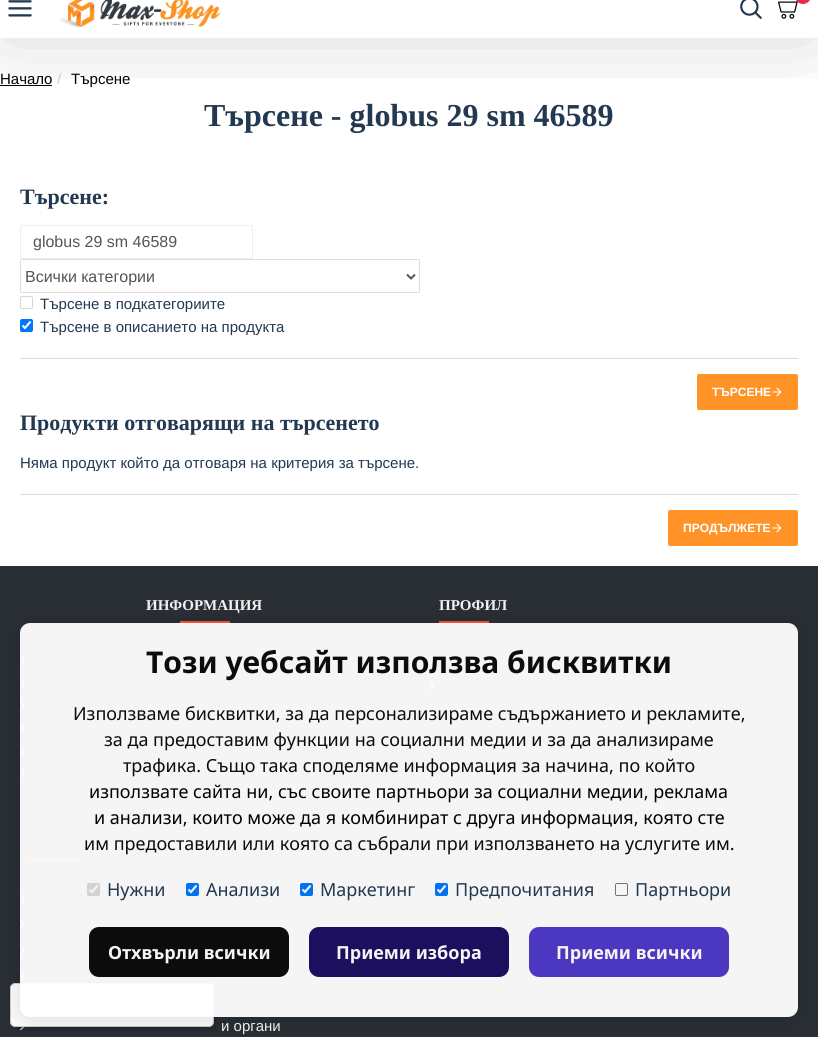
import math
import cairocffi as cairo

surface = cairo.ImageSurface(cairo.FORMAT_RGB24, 818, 1037)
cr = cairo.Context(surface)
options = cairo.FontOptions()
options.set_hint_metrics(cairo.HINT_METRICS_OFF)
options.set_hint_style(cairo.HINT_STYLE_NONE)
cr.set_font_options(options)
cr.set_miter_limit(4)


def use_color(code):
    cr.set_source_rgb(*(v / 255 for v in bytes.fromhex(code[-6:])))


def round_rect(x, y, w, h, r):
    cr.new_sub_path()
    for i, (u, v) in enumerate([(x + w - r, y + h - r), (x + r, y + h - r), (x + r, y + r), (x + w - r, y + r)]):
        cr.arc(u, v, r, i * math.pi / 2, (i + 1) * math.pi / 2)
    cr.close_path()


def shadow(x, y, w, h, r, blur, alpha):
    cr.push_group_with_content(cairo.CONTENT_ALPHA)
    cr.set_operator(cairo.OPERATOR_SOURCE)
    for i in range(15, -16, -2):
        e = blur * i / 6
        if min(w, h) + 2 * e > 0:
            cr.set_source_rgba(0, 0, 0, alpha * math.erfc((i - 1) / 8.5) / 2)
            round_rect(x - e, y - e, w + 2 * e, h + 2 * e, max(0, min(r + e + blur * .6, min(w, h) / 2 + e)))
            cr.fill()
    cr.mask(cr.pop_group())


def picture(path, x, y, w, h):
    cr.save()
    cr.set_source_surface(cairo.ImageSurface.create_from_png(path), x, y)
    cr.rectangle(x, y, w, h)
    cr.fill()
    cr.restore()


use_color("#ffffff")
cr.paint()
use_color("#000000")
cr.rectangle(0, 85, 52, 1)
cr.fill()
cr.save()
cr.rectangle(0, 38, 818, 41)
cr.clip()
use_color("#000000")
shadow(10, -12, 798, 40, 0, 42.5, 0.2)
cr.restore()
picture("img1.png", 8, 0, 24, 17)
picture("img2.png", 740, 0, 22, 19)
picture("img3.png", 778, 0, 20, 19)
use_color("#e8284d")
round_rect(795, -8, 16, 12, 8)
cr.fill()
picture("img4.png", 60, 0, 161, 28)
cr.select_font_face("Liberation Sans")
cr.set_font_size(15)
use_color("#000000")
cr.move_to(0, 84)
cr.show_text("Начало")
use_color("#cccccc")
cr.move_to(57, 84)
cr.show_text("/")
use_color("#000000")
cr.move_to(71, 84)
cr.show_text("Търсене")
cr.select_font_face("Liberation Serif", cairo.FONT_SLANT_NORMAL, cairo.FONT_WEIGHT_BOLD)
cr.set_font_size(32)
use_color("#233851")
cr.move_to(204, 126)
cr.show_text("Търсене - globus 29 sm 46589")
cr.set_font_size(22)
cr.move_to(20, 204)
cr.show_text("Търсене:")
round_rect(20.5, 225.5, 232, 33, 1.5)
use_color("#eeeeee")
cr.set_line_width(1)
cr.stroke()
cr.select_font_face("Liberation Sans")
cr.set_font_size(16)
use_color("#555555")
cr.move_to(33, 247)
cr.show_text("globus 29 sm 46589")
round_rect(20.5, 259.5, 399, 33, 1.5)
use_color("#dddddd")
cr.stroke()
cr.new_path()
cr.move_to(407, 274.5)
cr.line_to(411, 278.5)
cr.line_to(415, 274.5)
use_color("#555555")
cr.set_line_width(2)
cr.stroke()
cr.move_to(25, 282)
cr.show_text("Всички категории")
round_rect(20.5, 296.5, 12, 12, 1.5)
use_color("#d6d6d6")
cr.set_line_width(1)
cr.stroke()
cr.set_font_size(15)
use_color("#233851")
cr.move_to(40, 309)
cr.show_text("Търсене в подкатегориите")
use_color("#0075ff")
round_rect(20, 319, 13, 13, 2)
cr.fill()
cr.new_path()
cr.move_to(22.5, 325.5)
cr.line_to(25, 328)
cr.line_to(30.5, 321.5)
use_color("#ffffff")
cr.set_line_width(2.1)
cr.stroke()
use_color("#233851")
cr.move_to(40, 332)
cr.show_text("Търсене в описанието на продукта")
use_color("#dddddd")
cr.rectangle(20, 358, 778, 1)
cr.fill()
use_color("#ff9327")
round_rect(697, 374, 101, 36, 2)
cr.fill()
cr.select_font_face("Liberation Sans", cairo.FONT_SLANT_NORMAL, cairo.FONT_WEIGHT_BOLD)
cr.set_font_size(12)
use_color("#ffffff")
cr.move_to(712, 396)
cr.show_text("ТЪРСЕНЕ")
picture("img5.png", 772, 387, 10, 10)
cr.select_font_face("Liberation Serif", cairo.FONT_SLANT_NORMAL, cairo.FONT_WEIGHT_BOLD)
cr.set_font_size(22)
use_color("#233851")
cr.move_to(20, 430)
cr.show_text("Продукти отговарящи на търсенето")
cr.select_font_face("Liberation Sans")
cr.set_font_size(15)
cr.move_to(20, 468)
cr.show_text("Няма продукт който да отговаря на критерия за търсене.")
use_color("#dddddd")
cr.rectangle(20, 494, 778, 1)
cr.fill()
use_color("#ff9327")
round_rect(668, 510, 130, 36, 2)
cr.fill()
cr.select_font_face("Liberation Sans", cairo.FONT_SLANT_NORMAL, cairo.FONT_WEIGHT_BOLD)
cr.set_font_size(12)
use_color("#ffffff")
cr.move_to(683, 532)
cr.show_text("ПРОДЪЛЖЕТЕ")
picture("img5.png", 772, 523, 10, 10)
use_color("#292f35")
cr.rectangle(0, 566, 818, 471)
cr.fill()
cr.select_font_face("Liberation Serif", cairo.FONT_SLANT_NORMAL, cairo.FONT_WEIGHT_BOLD)
cr.set_font_size(15)
use_color("#f5f5f5")
cr.move_to(146, 610)
cr.show_text("ИНФОРМАЦИЯ")
use_color("#f85639")
cr.rectangle(180, 621, 50, 3)
cr.fill()
picture("img6.png", 20, 657, 5, 9)
picture("img6.png", 20, 679, 5, 9)
picture("img6.png", 20, 702, 5, 9)
picture("img6.png", 20, 724, 5, 9)
picture("img6.png", 20, 747, 5, 9)
picture("img6.png", 20, 769, 5, 9)
use_color("#f5f5f5")
cr.move_to(439, 610)
cr.show_text("ПРОФИЛ")
use_color("#f85639")
cr.rectangle(439, 621, 50, 3)
cr.fill()
picture("img6.png", 429, 657, 5, 9)
picture("img6.png", 429, 682, 5, 9)
picture("img6.png", 429, 708, 5, 9)
cr.rectangle(30, 859, 50, 3)
cr.fill()
picture("img6.png", 20, 895, 5, 9)
picture("img6.png", 20, 920, 5, 9)
picture("img6.png", 20, 946, 5, 9)
picture("img6.png", 20, 971, 5, 9)
picture("img7.png", 20, 1027, 4, 4)
cr.select_font_face("Liberation Sans")
use_color("#f5f5f5")
cr.move_to(221, 1031)
cr.show_text("и органи")
use_color("#000000")
shadow(12, 985, 204, 44, 5, 2.5, 0.2)
use_color("#ffffff")
round_rect(10.5, 983.5, 203, 43, 4.5)
cr.fill_preserve()
use_color("#cccccc")
cr.set_line_width(1)
cr.stroke()
cr.save()
cr.set_fill_rule(cairo.FILL_RULE_EVEN_ODD)
cr.new_path()
cr.move_to(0, 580)
cr.line_to(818, 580)
cr.line_to(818, 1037)
cr.line_to(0, 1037)
cr.close_path()
cr.move_to(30, 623)
cr.line_to(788, 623)
cr.curve_to(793.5, 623, 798, 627.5, 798, 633)
cr.line_to(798, 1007)
cr.curve_to(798, 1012.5, 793.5, 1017, 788, 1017)
cr.line_to(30, 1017)
cr.curve_to(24.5, 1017, 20, 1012.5, 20, 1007)
cr.line_to(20, 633)
cr.curve_to(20, 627.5, 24.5, 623, 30, 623)
cr.close_path()
cr.clip()
use_color("#000000")
shadow(20, 626, 778, 394, 10, 15, 0.15)
cr.restore()
cr.set_source_rgba(1, 1, 1, 0.95)
round_rect(20, 623, 778, 394, 10)
cr.fill()
cr.select_font_face("Noto Sans", cairo.FONT_SLANT_NORMAL, cairo.FONT_WEIGHT_BOLD)
cr.set_font_size(30)
use_color("#0c0c0c")
cr.move_to(146, 673)
cr.show_text("Този уебсайт използва бисквитки")
cr.select_font_face("Noto Sans")
cr.set_font_size(18)
cr.move_to(73, 720)
cr.show_text("Използваме бисквитки, за да персонализираме съдържанието и рекламите,")
cr.move_to(104, 746)
cr.show_text("за да предоставим функции на социални медии и за да анализираме")
cr.move_to(123, 772)
cr.show_text("трафика. Също така споделяме информация за начина, по който")
use_color("#000000")
cr.move_to(89, 798)
cr.show_text("използвате сайта ни, със своите партньори за социални медии, реклама")
cr.move_to(94, 824)
cr.show_text("и анализи, които може да я комбинират с друга информация, която сте")
use_color("#0c0c0c")
cr.move_to(84, 850)
cr.show_text("им предоставили или която са събрали при използването на услугите им.")
cr.set_source_rgba(0.463, 0.463, 0.463, 0.28)
round_rect(87, 883, 13, 13, 2)
cr.fill()
cr.new_path()
cr.move_to(89.5, 889.5)
cr.line_to(92, 892)
cr.line_to(97.5, 885.5)
use_color("#f4f5f5")
cr.set_line_width(2.1)
cr.stroke()
use_color("#233851")
cr.move_to(107, 896)
cr.show_text("Нужни")
use_color("#0272f5")
round_rect(186, 883, 13, 13, 2)
cr.fill()
cr.new_path()
cr.move_to(188.5, 889.5)
cr.line_to(191, 892)
cr.line_to(196.5, 885.5)
use_color("#f4f5f5")
cr.stroke()
use_color("#233851")
cr.move_to(206, 896)
cr.show_text("Анализи")
use_color("#0272f5")
round_rect(300, 883, 13, 13, 2)
cr.fill()
cr.new_path()
cr.move_to(302.5, 889.5)
cr.line_to(305, 892)
cr.line_to(310.5, 885.5)
use_color("#f4f5f5")
cr.stroke()
use_color("#233851")
cr.move_to(320, 896)
cr.show_text("Маркетинг")
use_color("#0272f5")
round_rect(435, 883, 13, 13, 2)
cr.fill()
cr.new_path()
cr.move_to(437.5, 889.5)
cr.line_to(440, 892)
cr.line_to(445.5, 885.5)
use_color("#f4f5f5")
cr.stroke()
use_color("#233851")
cr.move_to(455, 896)
cr.show_text("Предпочитания")
round_rect(615.5, 883.5, 12, 12, 1.5)
use_color("#727273")
cr.set_line_width(1)
cr.stroke()
use_color("#233851")
cr.move_to(635, 896)
cr.show_text("Партньори")
cr.set_source_rgba(0, 0, 0, 0.95)
round_rect(89, 927, 200, 50, 10)
cr.fill()
cr.select_font_face("Noto Sans", cairo.FONT_SLANT_NORMAL, cairo.FONT_WEIGHT_BOLD)
use_color("#f5f5f5")
cr.move_to(108, 959)
cr.show_text("Отхвърли всички")
use_color("#1b0f5e")
round_rect(309, 927, 200, 50, 10)
cr.fill()
use_color("#f5f5f5")
cr.move_to(336, 959)
cr.show_text("Приеми избора")
use_color("#4c38c0")
round_rect(529, 927, 200, 50, 10)
cr.fill()
use_color("#f5f5f5")
cr.move_to(556, 959)
cr.show_text("Приеми всички")
surface.write_to_png("result.png")
